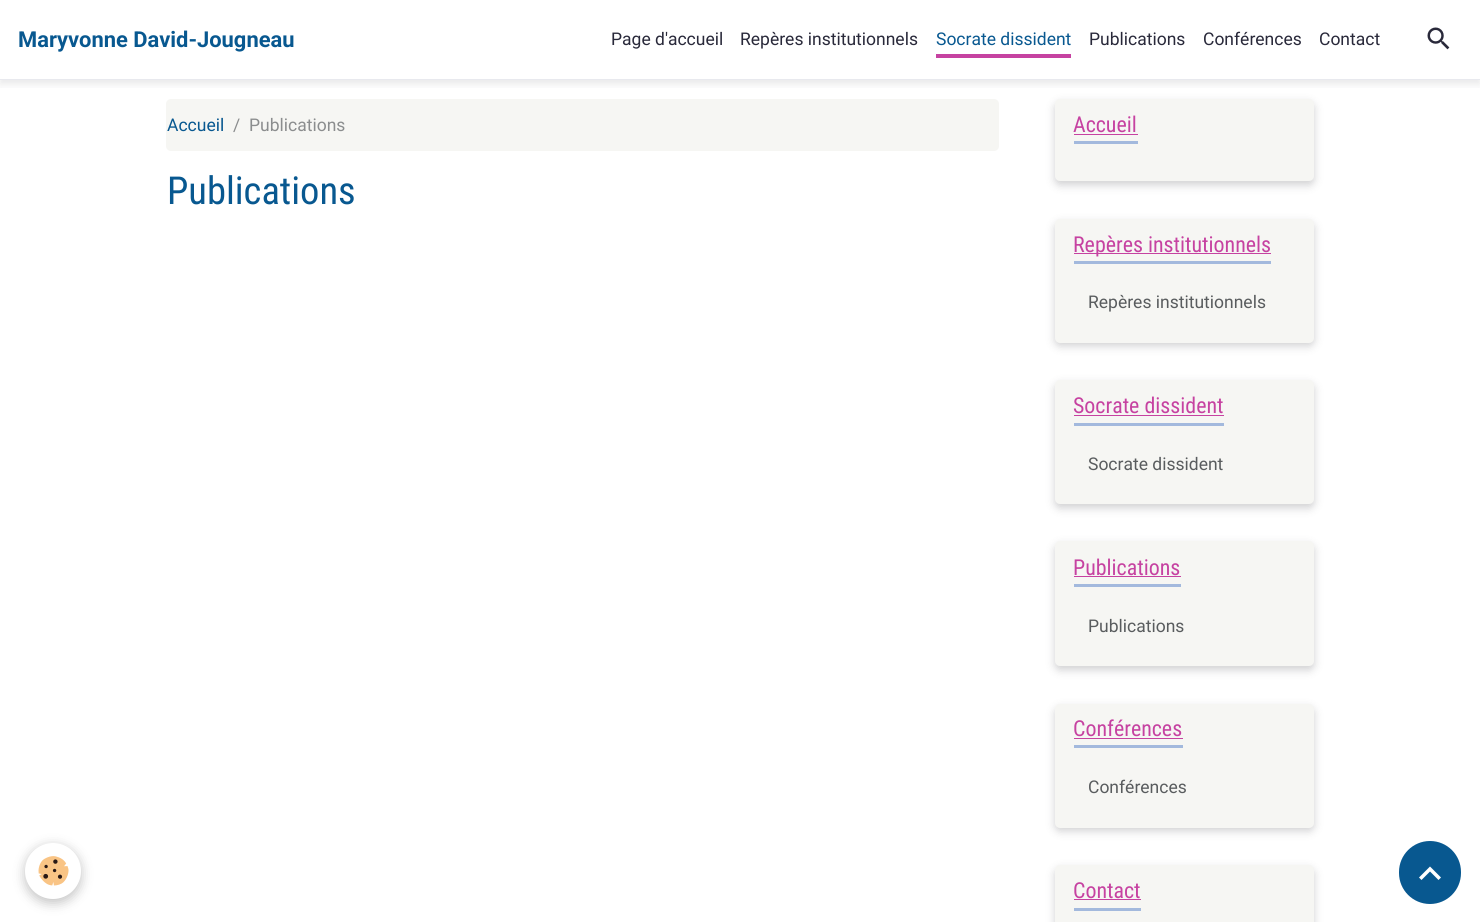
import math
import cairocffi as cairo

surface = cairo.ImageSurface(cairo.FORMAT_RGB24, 1480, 922)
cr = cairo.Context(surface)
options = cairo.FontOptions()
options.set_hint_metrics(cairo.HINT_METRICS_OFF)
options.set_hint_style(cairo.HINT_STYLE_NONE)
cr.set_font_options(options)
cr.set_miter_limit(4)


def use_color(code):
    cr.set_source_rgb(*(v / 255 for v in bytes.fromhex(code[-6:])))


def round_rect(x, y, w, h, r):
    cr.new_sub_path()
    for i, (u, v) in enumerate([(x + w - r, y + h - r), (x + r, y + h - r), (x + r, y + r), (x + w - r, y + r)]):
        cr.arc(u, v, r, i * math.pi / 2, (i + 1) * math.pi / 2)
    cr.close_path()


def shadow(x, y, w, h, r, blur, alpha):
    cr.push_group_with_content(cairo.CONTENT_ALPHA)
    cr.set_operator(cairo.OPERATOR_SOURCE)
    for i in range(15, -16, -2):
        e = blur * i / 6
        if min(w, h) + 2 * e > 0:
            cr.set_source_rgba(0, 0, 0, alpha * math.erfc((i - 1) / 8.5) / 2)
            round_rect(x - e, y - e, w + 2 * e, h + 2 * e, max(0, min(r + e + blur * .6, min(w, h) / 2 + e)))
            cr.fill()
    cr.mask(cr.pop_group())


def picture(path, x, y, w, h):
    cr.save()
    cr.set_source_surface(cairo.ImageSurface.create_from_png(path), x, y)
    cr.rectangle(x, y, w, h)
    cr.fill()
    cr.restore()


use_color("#ffffff")
cr.paint()
cr.save()
cr.rectangle(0, 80, 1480, 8)
cr.clip()
use_color("#14141c")
shadow(0, 4, 1480, 80, 0, 4.5, 0.1)
cr.restore()
use_color("#e8e9ee")
cr.rectangle(0, 79, 1480, 1)
cr.fill()
cr.select_font_face("Roboto", cairo.FONT_SLANT_NORMAL, cairo.FONT_WEIGHT_BOLD)
cr.set_font_size(21.9)
use_color("#085890")
cr.move_to(18, 47)
cr.show_text("Maryvonne David-Jougneau")
cr.select_font_face("Roboto")
cr.set_font_size(17.5)
use_color("#29293a")
cr.move_to(611, 45)
cr.show_text("Page d'accueil")
cr.move_to(740, 45)
cr.show_text("Repères institutionnels")
use_color("#085890")
cr.move_to(936, 45)
cr.show_text("Socrate dissident")
use_color("#c642a1")
cr.rectangle(936, 54, 135, 4)
cr.fill()
use_color("#29293a")
cr.move_to(1089, 45)
cr.show_text("Publications")
cr.move_to(1203, 45)
cr.show_text("Conférences")
cr.move_to(1319, 45)
cr.show_text("Contact")
picture("img1.png", 1427, 27, 23, 23)
use_color("#000000")
shadow(25, 846, 56, 57, 28, 6, 0.24)
use_color("#ffffff")
cr.arc(53, 871, 28, 0, 2 * math.pi)
cr.fill()
picture("img2.png", 38, 856, 31, 30)
use_color("#f6f6f3")
round_rect(166, 99, 833, 52, 5)
cr.fill()
use_color("#085890")
cr.move_to(167, 131)
cr.show_text("Accueil")
use_color("#8b8d8e")
cr.move_to(233, 131)
cr.show_text("/")
cr.move_to(249, 131)
cr.show_text("Publications")
cr.select_font_face("Roboto Condensed")
cr.set_font_size(38.5)
use_color("#085890")
cr.move_to(167, 204)
cr.show_text("Publications")
use_color("#14141c")
shadow(1055, 103, 259, 82, 5, 4.5, 0.2)
use_color("#f6f6f3")
round_rect(1055, 99, 259, 82, 5)
cr.fill()
use_color("#a3b9dd")
cr.rectangle(1074, 141, 64, 3)
cr.fill()
cr.set_font_size(21.9)
use_color("#c642a1")
cr.move_to(1073, 132)
cr.show_text("Accueil")
cr.rectangle(1074, 134, 64, 1)
cr.fill()
use_color("#14141c")
shadow(1055, 223, 259, 123, 5, 4.5, 0.2)
use_color("#f6f6f3")
round_rect(1055, 219, 259, 124, 5)
cr.fill()
use_color("#a3b9dd")
cr.rectangle(1074, 261, 197, 3)
cr.fill()
use_color("#c642a1")
cr.rectangle(1074, 253, 197, 1)
cr.fill()
cr.move_to(1073, 252)
cr.show_text("Repères institutionnels")
cr.select_font_face("Roboto")
cr.set_font_size(17.5)
use_color("#595c5e")
cr.move_to(1088, 308)
cr.show_text("Repères institutionnels")
use_color("#14141c")
shadow(1055, 384, 259, 124, 5, 4.5, 0.2)
use_color("#f6f6f3")
round_rect(1055, 380, 259, 124, 5)
cr.fill()
use_color("#a3b9dd")
cr.rectangle(1074, 423, 150, 3)
cr.fill()
cr.select_font_face("Roboto Condensed")
cr.set_font_size(21.9)
use_color("#c642a1")
cr.move_to(1073, 413)
cr.show_text("Socrate dissident")
cr.rectangle(1074, 415, 150, 1)
cr.fill()
cr.select_font_face("Roboto")
cr.set_font_size(17.5)
use_color("#595c5e")
cr.move_to(1088, 470)
cr.show_text("Socrate dissident")
use_color("#14141c")
shadow(1055, 545, 259, 125, 5, 4.5, 0.2)
use_color("#f6f6f3")
round_rect(1055, 541, 259, 125, 5)
cr.fill()
use_color("#a3b9dd")
cr.rectangle(1074, 584, 107, 3)
cr.fill()
cr.select_font_face("Roboto Condensed")
cr.set_font_size(21.9)
use_color("#c642a1")
cr.move_to(1073, 575)
cr.show_text("Publications")
cr.rectangle(1074, 576, 107, 1)
cr.fill()
cr.select_font_face("Roboto")
cr.set_font_size(17.5)
use_color("#595c5e")
cr.move_to(1088, 632)
cr.show_text("Publications")
use_color("#14141c")
shadow(1055, 708, 259, 123, 5, 4.5, 0.2)
use_color("#f6f6f3")
round_rect(1055, 704, 259, 124, 5)
cr.fill()
use_color("#a3b9dd")
cr.rectangle(1074, 745, 109, 3)
cr.fill()
cr.select_font_face("Roboto Condensed")
cr.set_font_size(21.9)
use_color("#c642a1")
cr.move_to(1073, 736)
cr.show_text("Conférences")
cr.rectangle(1074, 738, 109, 1)
cr.fill()
cr.select_font_face("Roboto")
cr.set_font_size(17.5)
use_color("#595c5e")
cr.move_to(1088, 793)
cr.show_text("Conférences")
use_color("#14141c")
shadow(1055, 869, 259, 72, 5, 4.5, 0.2)
use_color("#f6f6f3")
round_rect(1055, 865, 259, 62, 5)
cr.fill()
use_color("#a3b9dd")
cr.rectangle(1074, 908, 67, 3)
cr.fill()
cr.select_font_face("Roboto Condensed")
cr.set_font_size(21.9)
use_color("#c642a1")
cr.move_to(1073, 898)
cr.show_text("Contact")
cr.rectangle(1074, 899, 67, 1)
cr.fill()
use_color("#085890")
round_rect(1399, 841, 62, 63, 31)
cr.fill()
use_color("#ffffff")
cr.new_path()
cr.move_to(1430, 866.5)
cr.line_to(1441, 877.5)
cr.line_to(1438.5, 880)
cr.line_to(1430, 871.5)
cr.line_to(1421.5, 880)
cr.line_to(1419, 877.5)
cr.close_path()
cr.fill()
surface.write_to_png("result.png")
